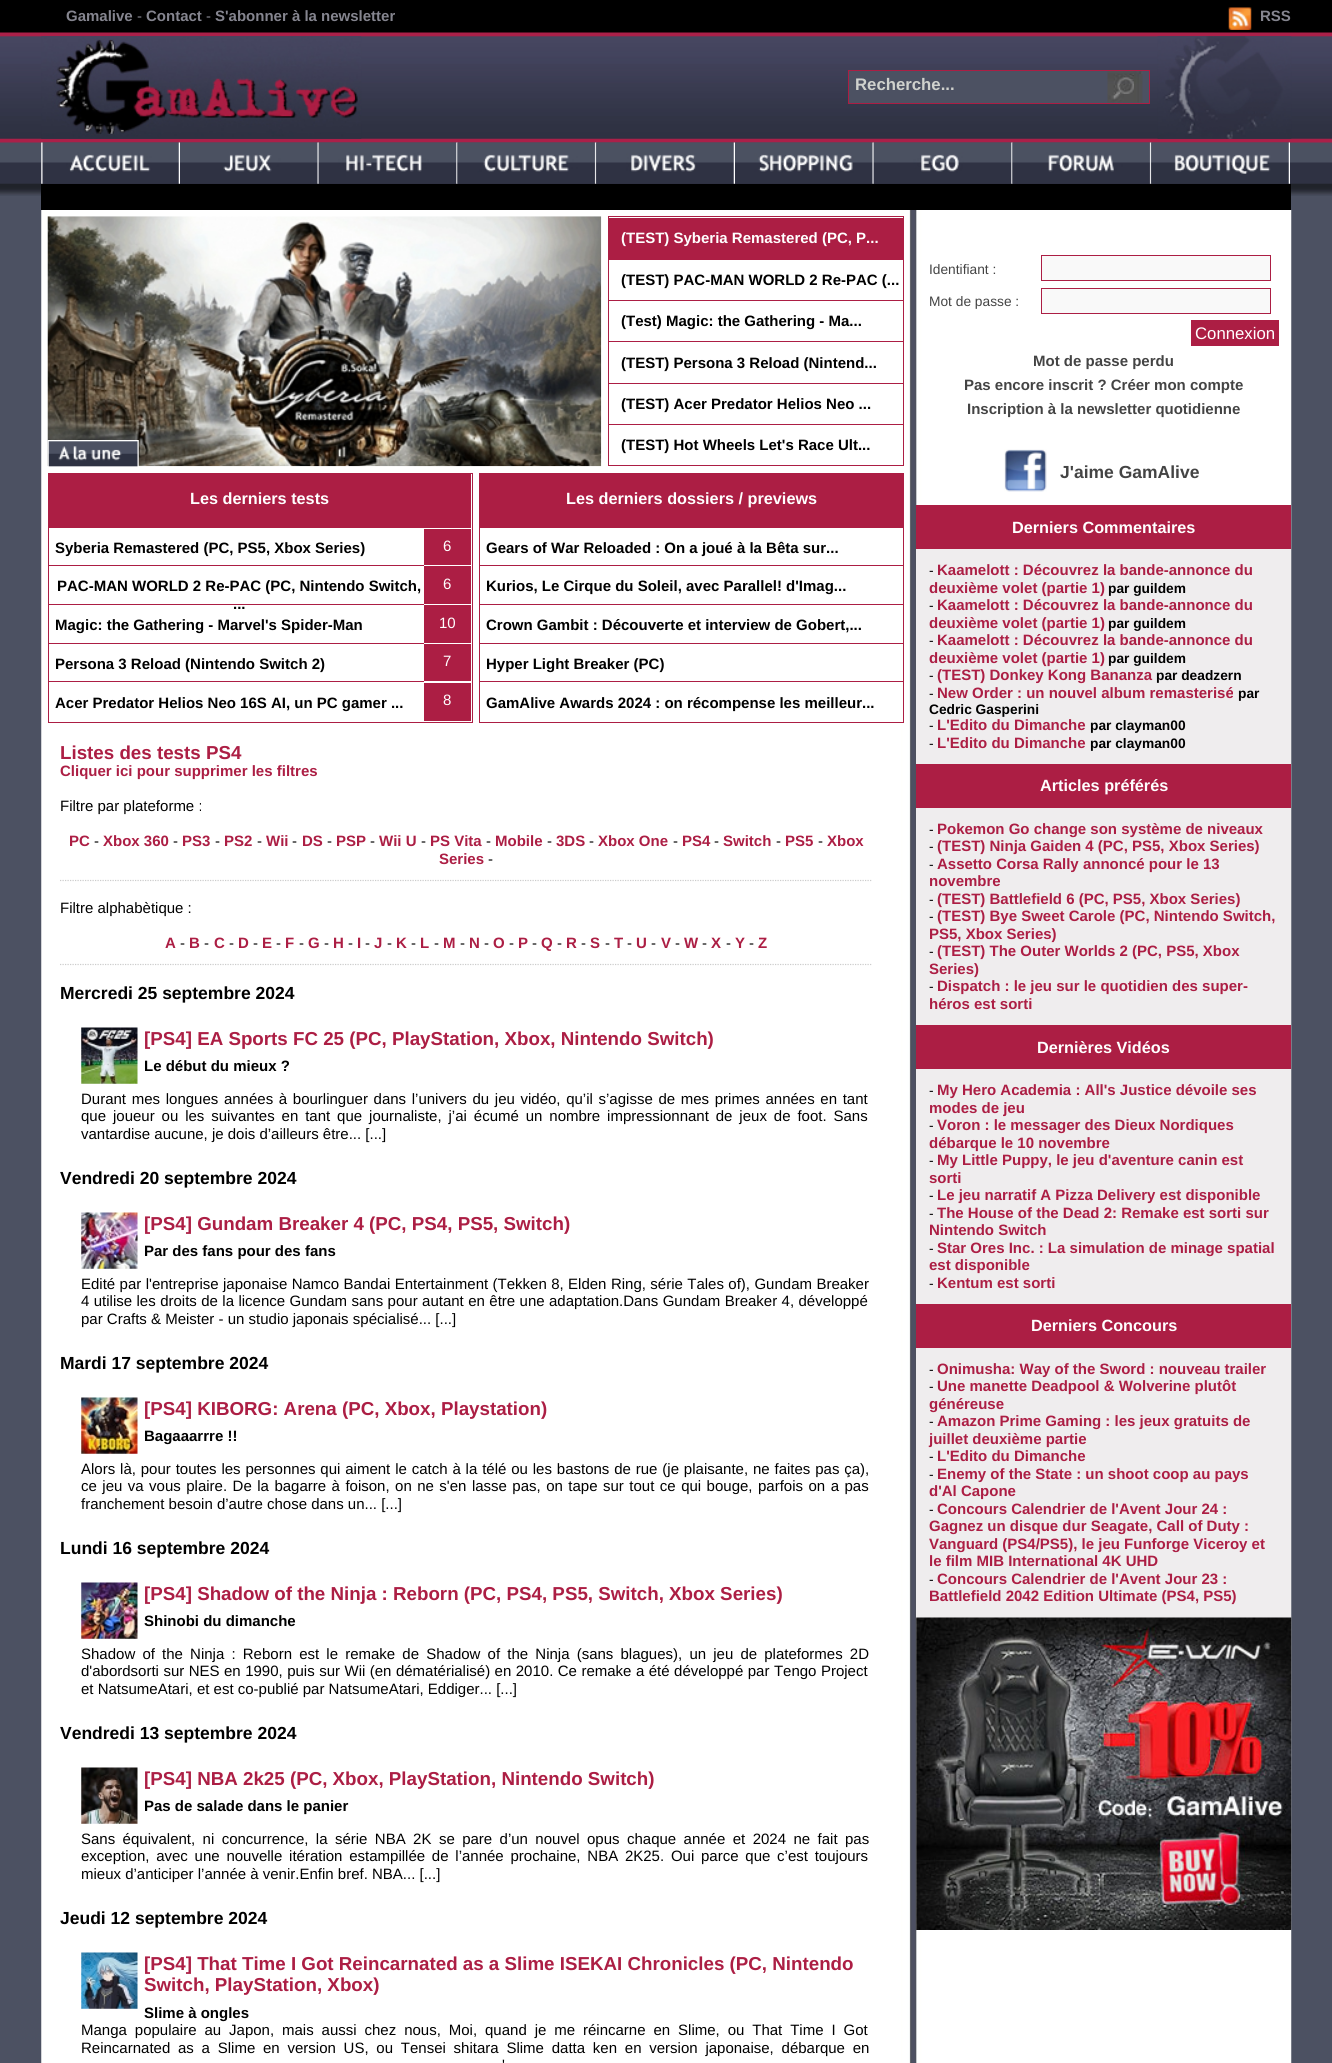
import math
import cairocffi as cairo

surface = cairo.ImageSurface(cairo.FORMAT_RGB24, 1332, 2063)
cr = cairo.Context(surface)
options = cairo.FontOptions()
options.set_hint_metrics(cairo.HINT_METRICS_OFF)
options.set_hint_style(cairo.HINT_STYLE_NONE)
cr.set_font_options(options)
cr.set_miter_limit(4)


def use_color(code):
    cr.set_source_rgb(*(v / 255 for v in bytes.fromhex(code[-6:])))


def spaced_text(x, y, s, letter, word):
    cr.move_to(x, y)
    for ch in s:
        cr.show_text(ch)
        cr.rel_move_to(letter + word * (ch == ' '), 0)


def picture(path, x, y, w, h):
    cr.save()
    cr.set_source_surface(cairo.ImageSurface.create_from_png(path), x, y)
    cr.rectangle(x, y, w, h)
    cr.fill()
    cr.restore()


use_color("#4c5162")
cr.paint()
picture("img1.png", 0, 0, 1332, 196)
picture("img2.png", 41, 0, 1250, 180)
cr.select_font_face("Liberation Sans", cairo.FONT_SLANT_NORMAL, cairo.FONT_WEIGHT_BOLD)
cr.set_font_size(15)
use_color("#85858f")
cr.move_to(66, 21)
cr.show_text("Gamalive")
cr.select_font_face("Liberation Sans")
cr.move_to(137, 21)
cr.show_text("-")
cr.select_font_face("Liberation Sans", cairo.FONT_SLANT_NORMAL, cairo.FONT_WEIGHT_BOLD)
cr.move_to(146, 21)
cr.show_text("Contact")
cr.select_font_face("Liberation Sans")
cr.move_to(206, 21)
cr.show_text("-")
cr.select_font_face("Liberation Sans", cairo.FONT_SLANT_NORMAL, cairo.FONT_WEIGHT_BOLD)
cr.move_to(215, 21)
cr.show_text("S'abonner à la newsletter")
picture("img3.png", 1228, 7, 24, 23)
cr.move_to(1260, 21)
cr.show_text("RSS")
picture("img4.png", 41, 36, 321, 103)
use_color("#4c5162")
cr.rectangle(848.5, 70.5, 301, 33)
cr.fill_preserve()
use_color("#ac1e44")
cr.set_line_width(1)
cr.stroke()
cr.set_font_size(16.75)
use_color("#cfd1cd")
cr.move_to(855, 90)
cr.show_text("Recherche...")
picture("img5.png", 1107, 71, 36, 32)
picture("img6.png", 1157, 36, 135, 103)
picture("img7.png", 41, 142, 139, 42)
picture("img8.png", 180, 142, 139, 42)
picture("img9.png", 318, 142, 140, 42)
picture("img10.png", 457, 142, 140, 42)
picture("img11.png", 596, 142, 139, 42)
picture("img12.png", 735, 142, 139, 42)
picture("img13.png", 873, 142, 140, 42)
picture("img14.png", 1012, 142, 140, 42)
picture("img15.png", 1151, 142, 139, 42)
use_color("#000000")
cr.rectangle(41, 184, 1250, 26)
cr.fill()
picture("img16.png", 41, 210, 1251, 1853)
picture("img17.png", 47, 216, 555, 251)
picture("img18.png", 47, 440, 92, 27)
cr.rectangle(608.5, 216.5, 295, 249)
use_color("#ac1e44")
cr.stroke()
cr.rectangle(609, 218, 294, 42)
cr.fill()
cr.set_font_size(15)
use_color("#ffffff")
cr.move_to(621, 243)
cr.show_text("(TEST) Syberia Remastered (PC, P...")
use_color("#ac1e44")
cr.rectangle(609, 300, 294, 1)
cr.fill()
use_color("#000000")
cr.move_to(621, 285)
cr.show_text("(TEST) PAC-MAN WORLD 2 Re-PAC (...")
use_color("#ac1e44")
cr.rectangle(609, 341, 294, 1)
cr.fill()
use_color("#000000")
cr.move_to(621, 326)
cr.show_text("(Test) Magic: the Gathering - Ma...")
use_color("#ac1e44")
cr.rectangle(609, 383, 294, 1)
cr.fill()
use_color("#000000")
cr.move_to(621, 368)
cr.show_text("(TEST) Persona 3 Reload (Nintend...")
use_color("#ac1e44")
cr.rectangle(609, 424, 294, 1)
cr.fill()
use_color("#000000")
cr.move_to(621, 409)
cr.show_text("(TEST) Acer Predator Helios Neo ...")
cr.move_to(621, 450)
cr.show_text("(TEST) Hot Wheels Let's Race Ult...")
cr.rectangle(48.5, 473.5, 424, 249)
use_color("#ac1e44")
cr.stroke()
cr.rectangle(49, 474, 422, 54)
cr.fill()
cr.set_font_size(16.25)
use_color("#ffffff")
cr.move_to(190, 504)
cr.show_text("Les derniers tests")
use_color("#ac1e44")
cr.rectangle(49, 565, 375, 1)
cr.fill()
cr.set_font_size(15)
use_color("#000000")
cr.move_to(55, 553)
cr.show_text("Syberia Remastered (PC, PS5, Xbox Series)")
use_color("#ac1e44")
cr.rectangle(424, 529, 47, 36)
cr.fill()
cr.select_font_face("Liberation Sans")
use_color("#ffffff")
cr.move_to(443, 551)
cr.show_text("6")
use_color("#ac1e44")
cr.rectangle(49, 604, 375, 1)
cr.fill()
cr.select_font_face("Liberation Sans", cairo.FONT_SLANT_NORMAL, cairo.FONT_WEIGHT_BOLD)
use_color("#000000")
cr.move_to(57, 591)
cr.show_text("PAC-MAN WORLD 2 Re-PAC (PC, Nintendo Switch,")
cr.move_to(233, 609)
cr.show_text("...")
use_color("#ac1e44")
cr.rectangle(424, 566, 47, 38)
cr.fill()
cr.select_font_face("Liberation Sans")
use_color("#ffffff")
cr.move_to(443, 589)
cr.show_text("6")
use_color("#ac1e44")
cr.rectangle(49, 643, 375, 1)
cr.fill()
cr.select_font_face("Liberation Sans", cairo.FONT_SLANT_NORMAL, cairo.FONT_WEIGHT_BOLD)
use_color("#000000")
cr.move_to(55, 630)
cr.show_text("Magic: the Gathering - Marvel's Spider-Man")
use_color("#ac1e44")
cr.rectangle(424, 605, 47, 38)
cr.fill()
cr.select_font_face("Liberation Sans")
use_color("#ffffff")
cr.move_to(439, 628)
cr.show_text("10")
use_color("#ac1e44")
cr.rectangle(49, 681, 375, 1)
cr.fill()
cr.select_font_face("Liberation Sans", cairo.FONT_SLANT_NORMAL, cairo.FONT_WEIGHT_BOLD)
use_color("#000000")
cr.move_to(55, 669)
cr.show_text("Persona 3 Reload (Nintendo Switch 2)")
use_color("#ac1e44")
cr.rectangle(424, 644, 47, 37)
cr.fill()
cr.select_font_face("Liberation Sans")
use_color("#ffffff")
cr.move_to(443, 666)
cr.show_text("7")
cr.select_font_face("Liberation Sans", cairo.FONT_SLANT_NORMAL, cairo.FONT_WEIGHT_BOLD)
use_color("#000000")
cr.move_to(55, 708)
cr.show_text("Acer Predator Helios Neo 16S AI, un PC gamer ...")
use_color("#ac1e44")
cr.rectangle(424, 683, 47, 38)
cr.fill()
cr.select_font_face("Liberation Sans")
use_color("#ffffff")
cr.move_to(443, 705)
cr.show_text("8")
cr.rectangle(479.5, 473.5, 424, 249)
use_color("#ac1e44")
cr.stroke()
cr.rectangle(480, 474, 423, 54)
cr.fill()
cr.select_font_face("Liberation Sans", cairo.FONT_SLANT_NORMAL, cairo.FONT_WEIGHT_BOLD)
cr.set_font_size(16.25)
use_color("#ffffff")
cr.move_to(566, 504)
cr.show_text("Les derniers dossiers / previews")
use_color("#ac1e44")
cr.rectangle(480, 565, 423, 1)
cr.fill()
cr.set_font_size(15)
use_color("#000000")
cr.move_to(486, 553)
cr.show_text("Gears of War Reloaded : On a joué à la Bêta sur...")
use_color("#ac1e44")
cr.rectangle(480, 604, 423, 1)
cr.fill()
use_color("#000000")
cr.move_to(486, 591)
cr.show_text("Kurios, Le Cirque du Soleil, avec Parallel! d'Imag...")
use_color("#ac1e44")
cr.rectangle(480, 643, 423, 1)
cr.fill()
use_color("#000000")
cr.move_to(486, 630)
cr.show_text("Crown Gambit : Découverte et interview de Gobert,...")
use_color("#ac1e44")
cr.rectangle(480, 681, 423, 1)
cr.fill()
use_color("#000000")
cr.move_to(486, 669)
cr.show_text("Hyper Light Breaker (PC)")
cr.move_to(486, 708)
cr.show_text("GamAlive Awards 2024 : on récompense les meilleur...")
cr.set_font_size(18.75)
use_color("#ac1e44")
cr.move_to(60, 759)
cr.show_text("Listes des tests PS4")
cr.set_font_size(15)
cr.move_to(60, 776)
cr.show_text("Cliquer ici pour supprimer les filtres")
cr.select_font_face("Liberation Sans")
use_color("#000000")
cr.move_to(60, 811)
cr.show_text("Filtre par plateforme :")
cr.new_path()
cr.move_to(60, 880.5)
cr.line_to(872.5, 880.5)
use_color("#cccccc")
cr.set_line_width(1.2)
cr.set_dash([1.25, 1.25])
cr.stroke()
cr.select_font_face("Liberation Sans", cairo.FONT_SLANT_NORMAL, cairo.FONT_WEIGHT_BOLD)
use_color("#ac1e44")
cr.move_to(69, 846)
cr.show_text("PC")
cr.select_font_face("Liberation Sans")
use_color("#000000")
cr.move_to(94, 846)
cr.show_text("-")
cr.select_font_face("Liberation Sans", cairo.FONT_SLANT_NORMAL, cairo.FONT_WEIGHT_BOLD)
use_color("#ac1e44")
cr.move_to(103, 846)
cr.show_text("Xbox 360")
cr.select_font_face("Liberation Sans")
use_color("#000000")
cr.move_to(173, 846)
cr.show_text("-")
cr.select_font_face("Liberation Sans", cairo.FONT_SLANT_NORMAL, cairo.FONT_WEIGHT_BOLD)
use_color("#ac1e44")
cr.move_to(182, 846)
cr.show_text("PS3")
cr.select_font_face("Liberation Sans")
use_color("#000000")
cr.move_to(215, 846)
cr.show_text("-")
cr.select_font_face("Liberation Sans", cairo.FONT_SLANT_NORMAL, cairo.FONT_WEIGHT_BOLD)
use_color("#ac1e44")
cr.move_to(224, 846)
cr.show_text("PS2")
cr.select_font_face("Liberation Sans")
use_color("#000000")
cr.move_to(257, 846)
cr.show_text("-")
cr.select_font_face("Liberation Sans", cairo.FONT_SLANT_NORMAL, cairo.FONT_WEIGHT_BOLD)
use_color("#ac1e44")
cr.move_to(266, 846)
cr.show_text("Wii")
cr.select_font_face("Liberation Sans")
use_color("#000000")
cr.move_to(292, 846)
cr.show_text("-")
cr.select_font_face("Liberation Sans", cairo.FONT_SLANT_NORMAL, cairo.FONT_WEIGHT_BOLD)
use_color("#ac1e44")
cr.move_to(302, 846)
cr.show_text("DS")
cr.select_font_face("Liberation Sans")
use_color("#000000")
cr.move_to(327, 846)
cr.show_text("-")
cr.select_font_face("Liberation Sans", cairo.FONT_SLANT_NORMAL, cairo.FONT_WEIGHT_BOLD)
use_color("#ac1e44")
cr.move_to(336, 846)
cr.show_text("PSP")
cr.select_font_face("Liberation Sans")
use_color("#000000")
cr.move_to(370, 846)
cr.show_text("-")
cr.select_font_face("Liberation Sans", cairo.FONT_SLANT_NORMAL, cairo.FONT_WEIGHT_BOLD)
use_color("#ac1e44")
cr.move_to(379, 846)
cr.show_text("Wii U")
cr.select_font_face("Liberation Sans")
use_color("#000000")
cr.move_to(421, 846)
cr.show_text("-")
cr.select_font_face("Liberation Sans", cairo.FONT_SLANT_NORMAL, cairo.FONT_WEIGHT_BOLD)
use_color("#ac1e44")
cr.move_to(430, 846)
cr.show_text("PS Vita")
cr.select_font_face("Liberation Sans")
use_color("#000000")
cr.move_to(486, 846)
cr.show_text("-")
cr.select_font_face("Liberation Sans", cairo.FONT_SLANT_NORMAL, cairo.FONT_WEIGHT_BOLD)
use_color("#ac1e44")
cr.move_to(495, 846)
cr.show_text("Mobile")
cr.select_font_face("Liberation Sans")
use_color("#000000")
cr.move_to(547, 846)
cr.show_text("-")
cr.select_font_face("Liberation Sans", cairo.FONT_SLANT_NORMAL, cairo.FONT_WEIGHT_BOLD)
use_color("#ac1e44")
cr.move_to(556, 846)
cr.show_text("3DS")
cr.select_font_face("Liberation Sans")
use_color("#000000")
cr.move_to(589, 846)
cr.show_text("-")
cr.select_font_face("Liberation Sans", cairo.FONT_SLANT_NORMAL, cairo.FONT_WEIGHT_BOLD)
use_color("#ac1e44")
cr.move_to(598, 846)
cr.show_text("Xbox One")
cr.select_font_face("Liberation Sans")
use_color("#000000")
cr.move_to(673, 846)
cr.show_text("-")
cr.select_font_face("Liberation Sans", cairo.FONT_SLANT_NORMAL, cairo.FONT_WEIGHT_BOLD)
use_color("#ac1e44")
cr.move_to(682, 846)
cr.show_text("PS4")
cr.select_font_face("Liberation Sans")
use_color("#000000")
cr.move_to(714, 846)
cr.show_text("-")
cr.select_font_face("Liberation Sans", cairo.FONT_SLANT_NORMAL, cairo.FONT_WEIGHT_BOLD)
use_color("#ac1e44")
cr.move_to(723, 846)
cr.show_text("Switch")
cr.select_font_face("Liberation Sans")
use_color("#000000")
cr.move_to(776, 846)
cr.show_text("-")
cr.select_font_face("Liberation Sans", cairo.FONT_SLANT_NORMAL, cairo.FONT_WEIGHT_BOLD)
use_color("#ac1e44")
cr.move_to(785, 846)
cr.show_text("PS5")
cr.select_font_face("Liberation Sans")
use_color("#000000")
cr.move_to(818, 846)
cr.show_text("-")
cr.select_font_face("Liberation Sans", cairo.FONT_SLANT_NORMAL, cairo.FONT_WEIGHT_BOLD)
use_color("#ac1e44")
cr.move_to(827, 846)
cr.show_text("Xbox")
cr.move_to(439, 864)
cr.show_text("Series")
cr.select_font_face("Liberation Sans")
use_color("#000000")
cr.move_to(488, 864)
cr.show_text("-")
cr.move_to(60, 913)
cr.show_text("Filtre alphabètique :")
cr.new_path()
cr.move_to(60, 964.5)
cr.line_to(872.5, 964.5)
use_color("#cccccc")
cr.stroke()
cr.select_font_face("Liberation Sans", cairo.FONT_SLANT_NORMAL, cairo.FONT_WEIGHT_BOLD)
use_color("#ac1e44")
cr.move_to(165, 948)
cr.show_text("A")
cr.select_font_face("Liberation Sans")
use_color("#000000")
cr.move_to(180, 948)
cr.show_text("-")
cr.select_font_face("Liberation Sans", cairo.FONT_SLANT_NORMAL, cairo.FONT_WEIGHT_BOLD)
use_color("#ac1e44")
cr.move_to(189, 948)
cr.show_text("B")
cr.select_font_face("Liberation Sans")
use_color("#000000")
cr.move_to(204, 948)
cr.show_text("-")
cr.select_font_face("Liberation Sans", cairo.FONT_SLANT_NORMAL, cairo.FONT_WEIGHT_BOLD)
use_color("#ac1e44")
cr.move_to(214, 948)
cr.show_text("C")
cr.select_font_face("Liberation Sans")
use_color("#000000")
cr.move_to(229, 948)
cr.show_text("-")
cr.select_font_face("Liberation Sans", cairo.FONT_SLANT_NORMAL, cairo.FONT_WEIGHT_BOLD)
use_color("#ac1e44")
cr.move_to(238, 948)
cr.show_text("D")
cr.select_font_face("Liberation Sans")
use_color("#000000")
cr.move_to(253, 948)
cr.show_text("-")
cr.select_font_face("Liberation Sans", cairo.FONT_SLANT_NORMAL, cairo.FONT_WEIGHT_BOLD)
use_color("#ac1e44")
cr.move_to(262, 948)
cr.show_text("E")
cr.select_font_face("Liberation Sans")
use_color("#000000")
cr.move_to(276, 948)
cr.show_text("-")
cr.select_font_face("Liberation Sans", cairo.FONT_SLANT_NORMAL, cairo.FONT_WEIGHT_BOLD)
use_color("#ac1e44")
cr.move_to(285, 948)
cr.show_text("F")
cr.select_font_face("Liberation Sans")
use_color("#000000")
cr.move_to(299, 948)
cr.show_text("-")
cr.select_font_face("Liberation Sans", cairo.FONT_SLANT_NORMAL, cairo.FONT_WEIGHT_BOLD)
use_color("#ac1e44")
cr.move_to(308, 948)
cr.show_text("G")
cr.select_font_face("Liberation Sans")
use_color("#000000")
cr.move_to(324, 948)
cr.show_text("-")
cr.select_font_face("Liberation Sans", cairo.FONT_SLANT_NORMAL, cairo.FONT_WEIGHT_BOLD)
use_color("#ac1e44")
cr.move_to(333, 948)
cr.show_text("H")
cr.select_font_face("Liberation Sans")
use_color("#000000")
cr.move_to(348, 948)
cr.show_text("-")
cr.select_font_face("Liberation Sans", cairo.FONT_SLANT_NORMAL, cairo.FONT_WEIGHT_BOLD)
use_color("#ac1e44")
cr.move_to(357, 948)
cr.show_text("I")
cr.select_font_face("Liberation Sans")
use_color("#000000")
cr.move_to(365, 948)
cr.show_text("-")
cr.select_font_face("Liberation Sans", cairo.FONT_SLANT_NORMAL, cairo.FONT_WEIGHT_BOLD)
use_color("#ac1e44")
cr.move_to(374, 948)
cr.show_text("J")
cr.select_font_face("Liberation Sans")
use_color("#000000")
cr.move_to(387, 948)
cr.show_text("-")
cr.select_font_face("Liberation Sans", cairo.FONT_SLANT_NORMAL, cairo.FONT_WEIGHT_BOLD)
use_color("#ac1e44")
cr.move_to(396, 948)
cr.show_text("K")
cr.select_font_face("Liberation Sans")
use_color("#000000")
cr.move_to(411, 948)
cr.show_text("-")
cr.select_font_face("Liberation Sans", cairo.FONT_SLANT_NORMAL, cairo.FONT_WEIGHT_BOLD)
use_color("#ac1e44")
cr.move_to(420, 948)
cr.show_text("L")
cr.select_font_face("Liberation Sans")
use_color("#000000")
cr.move_to(434, 948)
cr.show_text("-")
cr.select_font_face("Liberation Sans", cairo.FONT_SLANT_NORMAL, cairo.FONT_WEIGHT_BOLD)
use_color("#ac1e44")
cr.move_to(443, 948)
cr.show_text("M")
cr.select_font_face("Liberation Sans")
use_color("#000000")
cr.move_to(460, 948)
cr.show_text("-")
cr.select_font_face("Liberation Sans", cairo.FONT_SLANT_NORMAL, cairo.FONT_WEIGHT_BOLD)
use_color("#ac1e44")
cr.move_to(469, 948)
cr.show_text("N")
cr.select_font_face("Liberation Sans")
use_color("#000000")
cr.move_to(484, 948)
cr.show_text("-")
cr.select_font_face("Liberation Sans", cairo.FONT_SLANT_NORMAL, cairo.FONT_WEIGHT_BOLD)
use_color("#ac1e44")
cr.move_to(493, 948)
cr.show_text("O")
cr.select_font_face("Liberation Sans")
use_color("#000000")
cr.move_to(509, 948)
cr.show_text("-")
cr.select_font_face("Liberation Sans", cairo.FONT_SLANT_NORMAL, cairo.FONT_WEIGHT_BOLD)
use_color("#ac1e44")
cr.move_to(518, 948)
cr.show_text("P")
cr.select_font_face("Liberation Sans")
use_color("#000000")
cr.move_to(532, 948)
cr.show_text("-")
cr.select_font_face("Liberation Sans", cairo.FONT_SLANT_NORMAL, cairo.FONT_WEIGHT_BOLD)
use_color("#ac1e44")
cr.move_to(541, 948)
cr.show_text("Q")
cr.select_font_face("Liberation Sans")
use_color("#000000")
cr.move_to(557, 948)
cr.show_text("-")
cr.select_font_face("Liberation Sans", cairo.FONT_SLANT_NORMAL, cairo.FONT_WEIGHT_BOLD)
use_color("#ac1e44")
cr.move_to(566, 948)
cr.show_text("R")
cr.select_font_face("Liberation Sans")
use_color("#000000")
cr.move_to(581, 948)
cr.show_text("-")
cr.select_font_face("Liberation Sans", cairo.FONT_SLANT_NORMAL, cairo.FONT_WEIGHT_BOLD)
use_color("#ac1e44")
cr.move_to(590, 948)
cr.show_text("S")
cr.select_font_face("Liberation Sans")
use_color("#000000")
cr.move_to(605, 948)
cr.show_text("-")
cr.select_font_face("Liberation Sans", cairo.FONT_SLANT_NORMAL, cairo.FONT_WEIGHT_BOLD)
use_color("#ac1e44")
cr.move_to(614, 948)
cr.show_text("T")
cr.select_font_face("Liberation Sans")
use_color("#000000")
cr.move_to(627, 948)
cr.show_text("-")
cr.select_font_face("Liberation Sans", cairo.FONT_SLANT_NORMAL, cairo.FONT_WEIGHT_BOLD)
use_color("#ac1e44")
cr.move_to(636, 948)
cr.show_text("U")
cr.select_font_face("Liberation Sans")
use_color("#000000")
cr.move_to(651, 948)
cr.show_text("-")
cr.select_font_face("Liberation Sans", cairo.FONT_SLANT_NORMAL, cairo.FONT_WEIGHT_BOLD)
use_color("#ac1e44")
cr.move_to(661, 948)
cr.show_text("V")
cr.select_font_face("Liberation Sans")
use_color("#000000")
cr.move_to(675, 948)
cr.show_text("-")
cr.select_font_face("Liberation Sans", cairo.FONT_SLANT_NORMAL, cairo.FONT_WEIGHT_BOLD)
use_color("#ac1e44")
cr.move_to(684, 948)
cr.show_text("W")
cr.select_font_face("Liberation Sans")
use_color("#000000")
cr.move_to(702, 948)
cr.show_text("-")
cr.select_font_face("Liberation Sans", cairo.FONT_SLANT_NORMAL, cairo.FONT_WEIGHT_BOLD)
use_color("#ac1e44")
cr.move_to(711, 948)
cr.show_text("X")
cr.select_font_face("Liberation Sans")
use_color("#000000")
cr.move_to(726, 948)
cr.show_text("-")
cr.select_font_face("Liberation Sans", cairo.FONT_SLANT_NORMAL, cairo.FONT_WEIGHT_BOLD)
use_color("#ac1e44")
cr.move_to(735, 948)
cr.show_text("Y")
cr.select_font_face("Liberation Sans")
use_color("#000000")
cr.move_to(749, 948)
cr.show_text("-")
cr.select_font_face("Liberation Sans", cairo.FONT_SLANT_NORMAL, cairo.FONT_WEIGHT_BOLD)
use_color("#ac1e44")
cr.move_to(758, 948)
cr.show_text("Z")
cr.set_font_size(17.5)
use_color("#000000")
cr.move_to(60, 999)
cr.show_text("Mercredi 25 septembre 2024")
picture("img19.png", 81, 1027, 57, 57)
cr.set_font_size(18.75)
use_color("#ac1e44")
cr.move_to(144, 1045)
cr.show_text("[PS4] EA Sports FC 25 (PC, PlayStation, Xbox, Nintendo Switch)")
cr.set_font_size(15)
use_color("#000000")
cr.move_to(144, 1071)
cr.show_text("Le début du mieux ?")
cr.select_font_face("Liberation Sans")
spaced_text(81, 1104, "Durant mes longues années à bourlinguer dans l’univers du jeu vidéo, qu’il s’agisse de mes primes années en tant", 0, 1.5)
spaced_text(81, 1121, "que joueur ou les suivantes en tant que journaliste, j’ai écumé un nombre impressionnant de jeux de foot. Sans", 0, 2.75)
cr.move_to(81, 1139)
cr.show_text("vantardise aucune, je dois d’ailleurs être... [...]")
cr.select_font_face("Liberation Sans", cairo.FONT_SLANT_NORMAL, cairo.FONT_WEIGHT_BOLD)
cr.set_font_size(17.5)
cr.move_to(60, 1184)
cr.show_text("Vendredi 20 septembre 2024")
picture("img20.png", 81, 1212, 57, 57)
cr.set_font_size(18.75)
use_color("#ac1e44")
cr.move_to(144, 1230)
cr.show_text("[PS4] Gundam Breaker 4 (PC, PS4, PS5, Switch)")
cr.set_font_size(15)
use_color("#000000")
cr.move_to(144, 1256)
cr.show_text("Par des fans pour des fans")
cr.select_font_face("Liberation Sans")
spaced_text(81, 1289, "Edité par l'entreprise japonaise Namco Bandai Entertainment (Tekken 8, Elden Ring, série Tales of), Gundam Breaker", 0, 0.25)
spaced_text(81, 1306, "4 utilise les droits de la licence Gundam sans pour autant en être une adaptation.Dans Gundam Breaker 4, développé", 0, 0.25)
cr.move_to(81, 1324)
cr.show_text("par Crafts & Meister - un studio japonais spécialisé... [...]")
cr.select_font_face("Liberation Sans", cairo.FONT_SLANT_NORMAL, cairo.FONT_WEIGHT_BOLD)
cr.set_font_size(17.5)
cr.move_to(60, 1369)
cr.show_text("Mardi 17 septembre 2024")
picture("img21.png", 81, 1397, 57, 57)
cr.set_font_size(18.75)
use_color("#ac1e44")
cr.move_to(144, 1415)
cr.show_text("[PS4] KIBORG: Arena (PC, Xbox, Playstation)")
cr.set_font_size(15)
use_color("#000000")
cr.move_to(144, 1441)
cr.show_text("Bagaaarrre !!")
cr.select_font_face("Liberation Sans")
spaced_text(81, 1474, "Alors là, pour toutes les personnes qui aiment le catch à la télé ou les bastons de rue (je plaisante, ne faites pas ça),", 0, 0.7)
spaced_text(81, 1491, "ce jeu va vous plaire. De la bagarre à foison, on ne s'en lasse pas, on tape sur tout ce qui bouge, parfois on a pas", 0, 1.3)
cr.move_to(81, 1509)
cr.show_text("franchement besoin d’autre chose dans un... [...]")
cr.select_font_face("Liberation Sans", cairo.FONT_SLANT_NORMAL, cairo.FONT_WEIGHT_BOLD)
cr.set_font_size(17.5)
cr.move_to(60, 1554)
cr.show_text("Lundi 16 septembre 2024")
picture("img22.png", 81, 1582, 57, 57)
cr.set_font_size(18.75)
use_color("#ac1e44")
cr.move_to(144, 1600)
cr.show_text("[PS4] Shadow of the Ninja : Reborn (PC, PS4, PS5, Switch, Xbox Series)")
cr.set_font_size(15)
use_color("#000000")
cr.move_to(144, 1626)
cr.show_text("Shinobi du dimanche")
cr.select_font_face("Liberation Sans")
spaced_text(81, 1659, "Shadow of the Ninja : Reborn est le remake de Shadow of the Ninja (sans blagues), un jeu de plateformes 2D", 0, 3)
spaced_text(81, 1676, "d'abordsorti sur NES en 1990, puis sur Wii (en dématérialisé) en 2010. Ce remake a été développé par Tengo Project", 0, 0.3)
cr.move_to(81, 1694)
cr.show_text("et NatsumeAtari, et est co-publié par NatsumeAtari, Eddiger... [...]")
cr.select_font_face("Liberation Sans", cairo.FONT_SLANT_NORMAL, cairo.FONT_WEIGHT_BOLD)
cr.set_font_size(17.5)
cr.move_to(60, 1739)
cr.show_text("Vendredi 13 septembre 2024")
picture("img23.png", 81, 1767, 57, 57)
cr.set_font_size(18.75)
use_color("#ac1e44")
cr.move_to(144, 1785)
cr.show_text("[PS4] NBA 2k25 (PC, Xbox, PlayStation, Nintendo Switch)")
cr.set_font_size(15)
use_color("#000000")
cr.move_to(144, 1811)
cr.show_text("Pas de salade dans le panier")
cr.select_font_face("Liberation Sans")
spaced_text(81, 1844, "Sans équivalent, ni concurrence, la série NBA 2K se pare d’un nouvel opus chaque année et 2024 ne fait pas", 0, 3.25)
spaced_text(81, 1861, "exception, avec une nouvelle itération estampillée de l’année prochaine, NBA 2K25. Oui parce que c’est toujours", 0, 2.6)
cr.move_to(81, 1879)
cr.show_text("mieux d’anticiper l’année à venir.Enfin bref. NBA... [...]")
cr.select_font_face("Liberation Sans", cairo.FONT_SLANT_NORMAL, cairo.FONT_WEIGHT_BOLD)
cr.set_font_size(17.5)
cr.move_to(60, 1924)
cr.show_text("Jeudi 12 septembre 2024")
picture("img24.png", 81, 1952, 57, 57)
cr.set_font_size(18.75)
use_color("#ac1e44")
cr.move_to(144, 1970)
cr.show_text("[PS4] That Time I Got Reincarnated as a Slime ISEKAI Chronicles (PC, Nintendo")
cr.move_to(144, 1991)
cr.show_text("Switch, PlayStation, Xbox)")
cr.set_font_size(15)
use_color("#000000")
cr.move_to(144, 2018)
cr.show_text("Slime à ongles")
cr.select_font_face("Liberation Sans")
spaced_text(81, 2035, "Manga populaire au Japon, mais aussi chez nous, Moi, quand je me réincarne en Slime, ou That Time I Got", 0, 3.75)
spaced_text(81, 2053, "Reincarnated as a Slime en version US, ou Tensei shitara Slime datta ken en version japonaise, débarque en", 0, 3.6)
cr.move_to(502, 2070)
cr.show_text("'")
cr.set_font_size(13.75)
use_color("#444444")
cr.move_to(929, 274)
cr.show_text("Identifiant :")
use_color("#f9f9f9")
cr.rectangle(1041.5, 255.5, 229, 25)
cr.fill_preserve()
use_color("#ac1e44")
cr.set_line_width(1)
cr.set_dash([])
cr.stroke()
use_color("#444444")
cr.move_to(929, 306)
cr.show_text("Mot de passe :")
use_color("#f9f9f9")
cr.rectangle(1041.5, 288.5, 229, 25)
cr.fill_preserve()
use_color("#ac1e44")
cr.stroke()
cr.rectangle(1191, 320, 88, 26)
cr.fill()
cr.set_font_size(16.75)
use_color("#ffffff")
cr.move_to(1195, 339)
cr.show_text("Connexion")
cr.select_font_face("Liberation Sans", cairo.FONT_SLANT_NORMAL, cairo.FONT_WEIGHT_BOLD)
cr.set_font_size(15)
use_color("#444444")
cr.move_to(1033, 366)
cr.show_text("Mot de passe perdu")
cr.move_to(964, 390)
cr.show_text("Pas encore inscrit ? Créer mon compte")
cr.move_to(967, 414)
cr.show_text("Inscription à la newsletter quotidienne")
picture("img25.png", 1004, 449, 43, 43)
cr.set_font_size(17.5)
cr.move_to(1060, 478)
cr.show_text("J'aime GamAlive")
use_color("#efedee")
cr.rectangle(916, 549, 375, 215)
cr.fill()
use_color("#ac1e44")
cr.rectangle(916, 505, 375, 44)
cr.fill()
cr.set_font_size(16.25)
use_color("#ffffff")
cr.move_to(1012, 533)
cr.show_text("Derniers Commentaires")
cr.select_font_face("Liberation Sans")
cr.set_font_size(13.75)
use_color("#000000")
cr.move_to(929, 575)
cr.show_text("-")
cr.select_font_face("Liberation Sans", cairo.FONT_SLANT_NORMAL, cairo.FONT_WEIGHT_BOLD)
cr.set_font_size(15)
use_color("#ac1e44")
cr.move_to(937, 575)
cr.show_text("Kaamelott : Découvrez la bande-annonce du")
cr.move_to(929, 593)
cr.show_text("deuxième volet (partie 1)")
cr.set_font_size(13.75)
use_color("#000000")
cr.move_to(1108, 593)
cr.show_text("par guildem")
cr.select_font_face("Liberation Sans")
cr.move_to(929, 610)
cr.show_text("-")
cr.select_font_face("Liberation Sans", cairo.FONT_SLANT_NORMAL, cairo.FONT_WEIGHT_BOLD)
cr.set_font_size(15)
use_color("#ac1e44")
cr.move_to(937, 610)
cr.show_text("Kaamelott : Découvrez la bande-annonce du")
cr.move_to(929, 628)
cr.show_text("deuxième volet (partie 1)")
cr.set_font_size(13.75)
use_color("#000000")
cr.move_to(1108, 628)
cr.show_text("par guildem")
cr.select_font_face("Liberation Sans")
cr.move_to(929, 645)
cr.show_text("-")
cr.select_font_face("Liberation Sans", cairo.FONT_SLANT_NORMAL, cairo.FONT_WEIGHT_BOLD)
cr.set_font_size(15)
use_color("#ac1e44")
cr.move_to(937, 645)
cr.show_text("Kaamelott : Découvrez la bande-annonce du")
cr.move_to(929, 663)
cr.show_text("deuxième volet (partie 1)")
cr.set_font_size(13.75)
use_color("#000000")
cr.move_to(1108, 663)
cr.show_text("par guildem")
cr.select_font_face("Liberation Sans")
cr.move_to(929, 680)
cr.show_text("-")
cr.select_font_face("Liberation Sans", cairo.FONT_SLANT_NORMAL, cairo.FONT_WEIGHT_BOLD)
cr.set_font_size(15)
use_color("#ac1e44")
cr.move_to(937, 680)
cr.show_text("(TEST) Donkey Kong Bananza")
cr.set_font_size(13.75)
use_color("#000000")
cr.move_to(1156, 680)
cr.show_text("par deadzern")
cr.select_font_face("Liberation Sans")
cr.move_to(929, 698)
cr.show_text("-")
cr.select_font_face("Liberation Sans", cairo.FONT_SLANT_NORMAL, cairo.FONT_WEIGHT_BOLD)
cr.set_font_size(15)
use_color("#ac1e44")
cr.move_to(937, 698)
cr.show_text("New Order : un nouvel album remasterisé")
cr.set_font_size(13.75)
use_color("#000000")
cr.move_to(1238, 698)
cr.show_text("par")
cr.move_to(929, 714)
cr.show_text("Cedric Gasperini")
cr.select_font_face("Liberation Sans")
cr.move_to(929, 730)
cr.show_text("-")
cr.select_font_face("Liberation Sans", cairo.FONT_SLANT_NORMAL, cairo.FONT_WEIGHT_BOLD)
cr.set_font_size(15)
use_color("#ac1e44")
cr.move_to(937, 730)
cr.show_text("L'Edito du Dimanche")
cr.set_font_size(13.75)
use_color("#000000")
cr.move_to(1090, 730)
cr.show_text("par clayman00")
cr.select_font_face("Liberation Sans")
cr.move_to(929, 748)
cr.show_text("-")
cr.select_font_face("Liberation Sans", cairo.FONT_SLANT_NORMAL, cairo.FONT_WEIGHT_BOLD)
cr.set_font_size(15)
use_color("#ac1e44")
cr.move_to(937, 748)
cr.show_text("L'Edito du Dimanche")
cr.set_font_size(13.75)
use_color("#000000")
cr.move_to(1090, 748)
cr.show_text("par clayman00")
use_color("#efedee")
cr.rectangle(916, 808, 375, 217)
cr.fill()
use_color("#ac1e44")
cr.rectangle(916, 764, 375, 44)
cr.fill()
cr.set_font_size(16.25)
use_color("#ffffff")
cr.move_to(1040, 791)
cr.show_text("Articles préférés")
cr.select_font_face("Liberation Sans")
cr.set_font_size(13.75)
use_color("#000000")
cr.move_to(929, 834)
cr.show_text("-")
cr.select_font_face("Liberation Sans", cairo.FONT_SLANT_NORMAL, cairo.FONT_WEIGHT_BOLD)
cr.set_font_size(15)
use_color("#ac1e44")
cr.move_to(937, 834)
cr.show_text("Pokemon Go change son système de niveaux")
cr.select_font_face("Liberation Sans")
cr.set_font_size(13.75)
use_color("#000000")
cr.move_to(929, 851)
cr.show_text("-")
cr.select_font_face("Liberation Sans", cairo.FONT_SLANT_NORMAL, cairo.FONT_WEIGHT_BOLD)
cr.set_font_size(15)
use_color("#ac1e44")
cr.move_to(937, 851)
cr.show_text("(TEST) Ninja Gaiden 4 (PC, PS5, Xbox Series)")
cr.select_font_face("Liberation Sans")
cr.set_font_size(13.75)
use_color("#000000")
cr.move_to(929, 869)
cr.show_text("-")
cr.select_font_face("Liberation Sans", cairo.FONT_SLANT_NORMAL, cairo.FONT_WEIGHT_BOLD)
cr.set_font_size(15)
use_color("#ac1e44")
cr.move_to(937, 869)
cr.show_text("Assetto Corsa Rally annoncé pour le 13")
cr.move_to(929, 886)
cr.show_text("novembre")
cr.select_font_face("Liberation Sans")
cr.set_font_size(13.75)
use_color("#000000")
cr.move_to(929, 904)
cr.show_text("-")
cr.select_font_face("Liberation Sans", cairo.FONT_SLANT_NORMAL, cairo.FONT_WEIGHT_BOLD)
cr.set_font_size(15)
use_color("#ac1e44")
cr.move_to(937, 904)
cr.show_text("(TEST) Battlefield 6 (PC, PS5, Xbox Series)")
cr.select_font_face("Liberation Sans")
cr.set_font_size(13.75)
use_color("#000000")
cr.move_to(929, 921)
cr.show_text("-")
cr.select_font_face("Liberation Sans", cairo.FONT_SLANT_NORMAL, cairo.FONT_WEIGHT_BOLD)
cr.set_font_size(15)
use_color("#ac1e44")
cr.move_to(937, 921)
cr.show_text("(TEST) Bye Sweet Carole (PC, Nintendo Switch,")
cr.move_to(929, 939)
cr.show_text("PS5, Xbox Series)")
cr.select_font_face("Liberation Sans")
cr.set_font_size(13.75)
use_color("#000000")
cr.move_to(929, 956)
cr.show_text("-")
cr.select_font_face("Liberation Sans", cairo.FONT_SLANT_NORMAL, cairo.FONT_WEIGHT_BOLD)
cr.set_font_size(15)
use_color("#ac1e44")
cr.move_to(937, 956)
cr.show_text("(TEST) The Outer Worlds 2 (PC, PS5, Xbox")
cr.move_to(929, 974)
cr.show_text("Series)")
cr.select_font_face("Liberation Sans")
cr.set_font_size(13.75)
use_color("#000000")
cr.move_to(929, 991)
cr.show_text("-")
cr.select_font_face("Liberation Sans", cairo.FONT_SLANT_NORMAL, cairo.FONT_WEIGHT_BOLD)
cr.set_font_size(15)
use_color("#ac1e44")
cr.move_to(937, 991)
cr.show_text("Dispatch : le jeu sur le quotidien des super-")
cr.move_to(929, 1009)
cr.show_text("héros est sorti")
use_color("#efedee")
cr.rectangle(916, 1069, 375, 235)
cr.fill()
use_color("#ac1e44")
cr.rectangle(916, 1025, 375, 44)
cr.fill()
cr.set_font_size(16.25)
use_color("#ffffff")
cr.move_to(1037, 1053)
cr.show_text("Dernières Vidéos")
cr.select_font_face("Liberation Sans")
cr.set_font_size(13.75)
use_color("#000000")
cr.move_to(929, 1095)
cr.show_text("-")
cr.select_font_face("Liberation Sans", cairo.FONT_SLANT_NORMAL, cairo.FONT_WEIGHT_BOLD)
cr.set_font_size(15)
use_color("#ac1e44")
cr.move_to(937, 1095)
cr.show_text("My Hero Academia : All's Justice dévoile ses")
cr.move_to(929, 1113)
cr.show_text("modes de jeu")
cr.select_font_face("Liberation Sans")
cr.set_font_size(13.75)
use_color("#000000")
cr.move_to(929, 1130)
cr.show_text("-")
cr.select_font_face("Liberation Sans", cairo.FONT_SLANT_NORMAL, cairo.FONT_WEIGHT_BOLD)
cr.set_font_size(15)
use_color("#ac1e44")
cr.move_to(937, 1130)
cr.show_text("Voron : le messager des Dieux Nordiques")
cr.move_to(929, 1148)
cr.show_text("débarque le 10 novembre")
cr.select_font_face("Liberation Sans")
cr.set_font_size(13.75)
use_color("#000000")
cr.move_to(929, 1165)
cr.show_text("-")
cr.select_font_face("Liberation Sans", cairo.FONT_SLANT_NORMAL, cairo.FONT_WEIGHT_BOLD)
cr.set_font_size(15)
use_color("#ac1e44")
cr.move_to(937, 1165)
cr.show_text("My Little Puppy, le jeu d'aventure canin est")
cr.move_to(929, 1183)
cr.show_text("sorti")
cr.select_font_face("Liberation Sans")
cr.set_font_size(13.75)
use_color("#000000")
cr.move_to(929, 1200)
cr.show_text("-")
cr.select_font_face("Liberation Sans", cairo.FONT_SLANT_NORMAL, cairo.FONT_WEIGHT_BOLD)
cr.set_font_size(15)
use_color("#ac1e44")
cr.move_to(937, 1200)
cr.show_text("Le jeu narratif A Pizza Delivery est disponible")
cr.select_font_face("Liberation Sans")
cr.set_font_size(13.75)
use_color("#000000")
cr.move_to(929, 1218)
cr.show_text("-")
cr.select_font_face("Liberation Sans", cairo.FONT_SLANT_NORMAL, cairo.FONT_WEIGHT_BOLD)
cr.set_font_size(15)
use_color("#ac1e44")
cr.move_to(937, 1218)
cr.show_text("The House of the Dead 2: Remake est sorti sur")
cr.move_to(929, 1235)
cr.show_text("Nintendo Switch")
cr.select_font_face("Liberation Sans")
cr.set_font_size(13.75)
use_color("#000000")
cr.move_to(929, 1253)
cr.show_text("-")
cr.select_font_face("Liberation Sans", cairo.FONT_SLANT_NORMAL, cairo.FONT_WEIGHT_BOLD)
cr.set_font_size(15)
use_color("#ac1e44")
cr.move_to(937, 1253)
cr.show_text("Star Ores Inc. : La simulation de minage spatial")
cr.move_to(929, 1270)
cr.show_text("est disponible")
cr.select_font_face("Liberation Sans")
cr.set_font_size(13.75)
use_color("#000000")
cr.move_to(929, 1288)
cr.show_text("-")
cr.select_font_face("Liberation Sans", cairo.FONT_SLANT_NORMAL, cairo.FONT_WEIGHT_BOLD)
cr.set_font_size(15)
use_color("#ac1e44")
cr.move_to(937, 1288)
cr.show_text("Kentum est sorti")
use_color("#efedee")
cr.rectangle(916, 1348, 375, 270)
cr.fill()
use_color("#ac1e44")
cr.rectangle(916, 1304, 375, 44)
cr.fill()
cr.set_font_size(16.25)
use_color("#ffffff")
cr.move_to(1031, 1331)
cr.show_text("Derniers Concours")
cr.select_font_face("Liberation Sans")
cr.set_font_size(13.75)
use_color("#000000")
cr.move_to(929, 1374)
cr.show_text("-")
cr.select_font_face("Liberation Sans", cairo.FONT_SLANT_NORMAL, cairo.FONT_WEIGHT_BOLD)
cr.set_font_size(15)
use_color("#ac1e44")
cr.move_to(937, 1374)
cr.show_text("Onimusha: Way of the Sword : nouveau trailer")
cr.select_font_face("Liberation Sans")
cr.set_font_size(13.75)
use_color("#000000")
cr.move_to(929, 1391)
cr.show_text("-")
cr.select_font_face("Liberation Sans", cairo.FONT_SLANT_NORMAL, cairo.FONT_WEIGHT_BOLD)
cr.set_font_size(15)
use_color("#ac1e44")
cr.move_to(937, 1391)
cr.show_text("Une manette Deadpool & Wolverine plutôt")
cr.move_to(929, 1409)
cr.show_text("généreuse")
cr.select_font_face("Liberation Sans")
cr.set_font_size(13.75)
use_color("#000000")
cr.move_to(929, 1426)
cr.show_text("-")
cr.select_font_face("Liberation Sans", cairo.FONT_SLANT_NORMAL, cairo.FONT_WEIGHT_BOLD)
cr.set_font_size(15)
use_color("#ac1e44")
cr.move_to(937, 1426)
cr.show_text("Amazon Prime Gaming : les jeux gratuits de")
cr.move_to(929, 1444)
cr.show_text("juillet deuxième partie")
cr.select_font_face("Liberation Sans")
cr.set_font_size(13.75)
use_color("#000000")
cr.move_to(929, 1461)
cr.show_text("-")
cr.select_font_face("Liberation Sans", cairo.FONT_SLANT_NORMAL, cairo.FONT_WEIGHT_BOLD)
cr.set_font_size(15)
use_color("#ac1e44")
cr.move_to(937, 1461)
cr.show_text("L'Edito du Dimanche")
cr.select_font_face("Liberation Sans")
cr.set_font_size(13.75)
use_color("#000000")
cr.move_to(929, 1479)
cr.show_text("-")
cr.select_font_face("Liberation Sans", cairo.FONT_SLANT_NORMAL, cairo.FONT_WEIGHT_BOLD)
cr.set_font_size(15)
use_color("#ac1e44")
cr.move_to(937, 1479)
cr.show_text("Enemy of the State : un shoot coop au pays")
cr.move_to(929, 1496)
cr.show_text("d'Al Capone")
cr.select_font_face("Liberation Sans")
cr.set_font_size(13.75)
use_color("#000000")
cr.move_to(929, 1514)
cr.show_text("-")
cr.select_font_face("Liberation Sans", cairo.FONT_SLANT_NORMAL, cairo.FONT_WEIGHT_BOLD)
cr.set_font_size(15)
use_color("#ac1e44")
cr.move_to(937, 1514)
cr.show_text("Concours Calendrier de l'Avent Jour 24 :")
cr.move_to(929, 1531)
cr.show_text("Gagnez un disque dur Seagate, Call of Duty :")
cr.move_to(929, 1549)
cr.show_text("Vanguard (PS4/PS5), le jeu Funforge Viceroy et")
cr.move_to(929, 1566)
cr.show_text("le film MIB International 4K UHD")
cr.select_font_face("Liberation Sans")
cr.set_font_size(13.75)
use_color("#000000")
cr.move_to(929, 1584)
cr.show_text("-")
cr.select_font_face("Liberation Sans", cairo.FONT_SLANT_NORMAL, cairo.FONT_WEIGHT_BOLD)
cr.set_font_size(15)
use_color("#ac1e44")
cr.move_to(937, 1584)
cr.show_text("Concours Calendrier de l'Avent Jour 23 :")
cr.move_to(929, 1601)
cr.show_text("Battlefield 2042 Edition Ultimate (PS4, PS5)")
picture("img26.png", 916, 1617, 376, 313)
surface.write_to_png("result.png")
